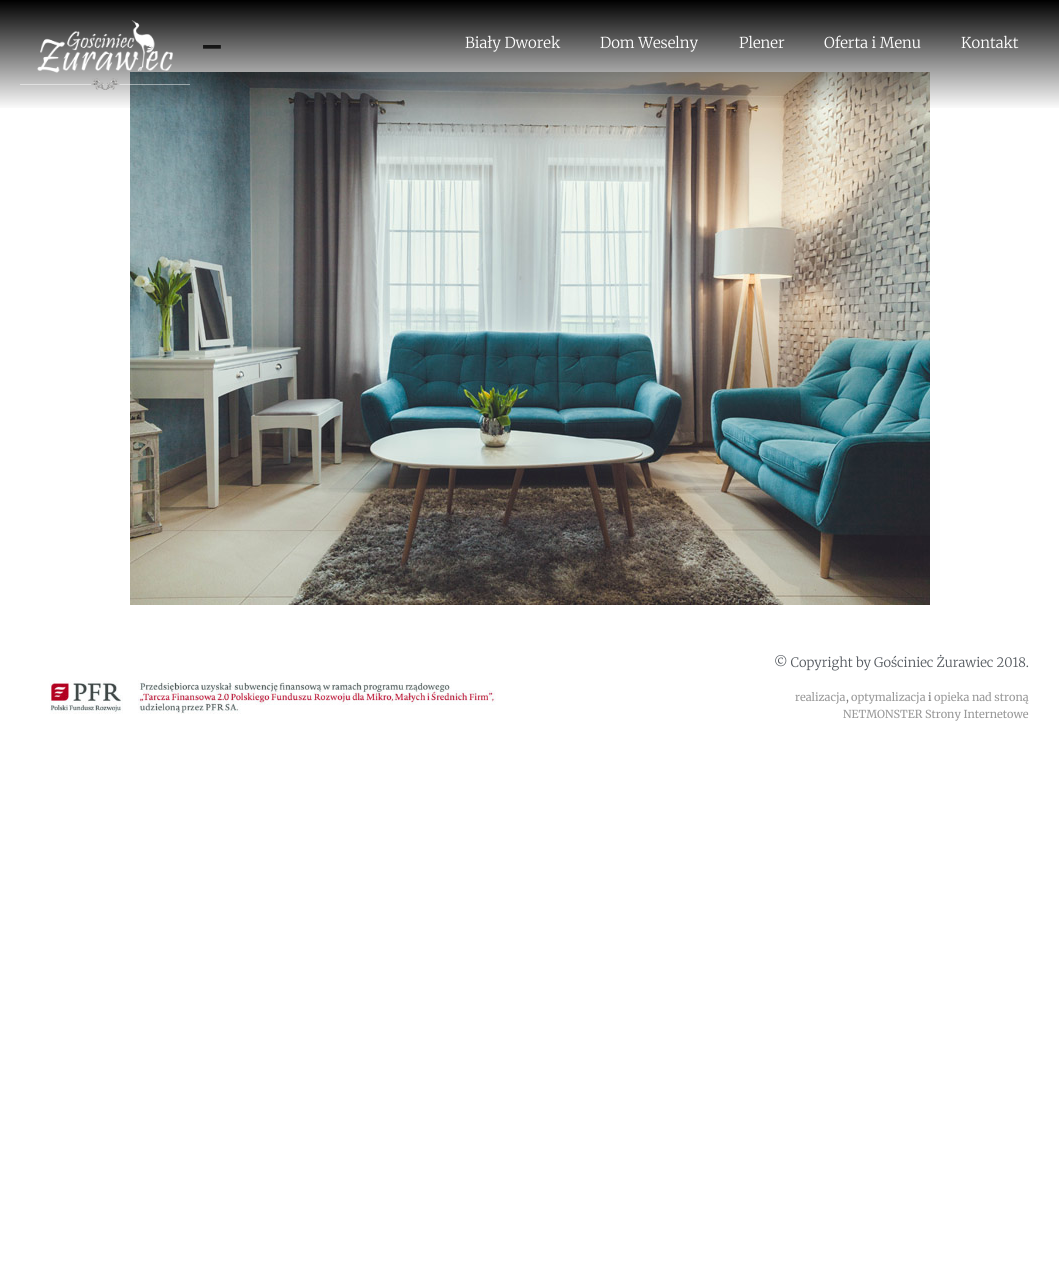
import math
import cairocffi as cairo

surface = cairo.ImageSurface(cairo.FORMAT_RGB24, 1059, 1272)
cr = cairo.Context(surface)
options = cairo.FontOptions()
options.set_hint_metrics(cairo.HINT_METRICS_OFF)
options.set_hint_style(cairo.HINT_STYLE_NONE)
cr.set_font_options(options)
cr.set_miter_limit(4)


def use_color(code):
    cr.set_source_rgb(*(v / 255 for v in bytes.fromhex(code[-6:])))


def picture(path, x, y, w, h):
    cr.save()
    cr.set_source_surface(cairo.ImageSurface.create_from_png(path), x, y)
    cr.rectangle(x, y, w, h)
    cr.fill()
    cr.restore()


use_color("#ffffff")
cr.paint()
cr.select_font_face("Roboto Medium")
cr.set_font_size(40)
use_color("#333333")
cr.move_to(203, 45)
cr.show_text("_")
picture("img1.png", 130, 72, 800, 533)
gradient = cairo.LinearGradient(530, 0, 530, 110)
gradient.add_color_stop_rgba(0, 0, 0, 0, 1)
gradient.add_color_stop_rgba(1, 0, 0, 0, 0)
cr.set_source(gradient)
cr.rectangle(0, 0, 1059, 108)
cr.fill()
picture("img2.png", 20, 20, 170, 70)
cr.select_font_face("Merriweather Light")
cr.set_font_size(15)
use_color("#ffffff")
cr.move_to(465, 48)
cr.show_text("Biały Dworek")
cr.move_to(600, 48)
cr.show_text("Dom Weselny")
cr.move_to(739, 48)
cr.show_text("Plener")
cr.move_to(824, 48)
cr.show_text("Oferta i Menu")
cr.move_to(961, 48)
cr.show_text("Kontakt")
picture("img3.png", 49, 680, 447, 34)
cr.set_font_size(13)
use_color("#54595f")
cr.move_to(774, 667)
cr.show_text("© Copyright by Gościniec Żurawiec 2018.")
cr.select_font_face("Merriweather")
cr.set_font_size(11)
use_color("#999999")
cr.move_to(795, 701)
cr.show_text("realizacja")
use_color("#7a7a7a")
cr.move_to(846, 701)
cr.show_text(",")
use_color("#999999")
cr.move_to(851, 701)
cr.show_text("optymalizacja")
use_color("#7a7a7a")
cr.move_to(928, 701)
cr.show_text("i")
use_color("#999999")
cr.move_to(934, 701)
cr.show_text("opieka nad stroną")
cr.move_to(843, 718)
cr.show_text("NETMONSTER Strony Internetowe")
surface.write_to_png("result.png")
